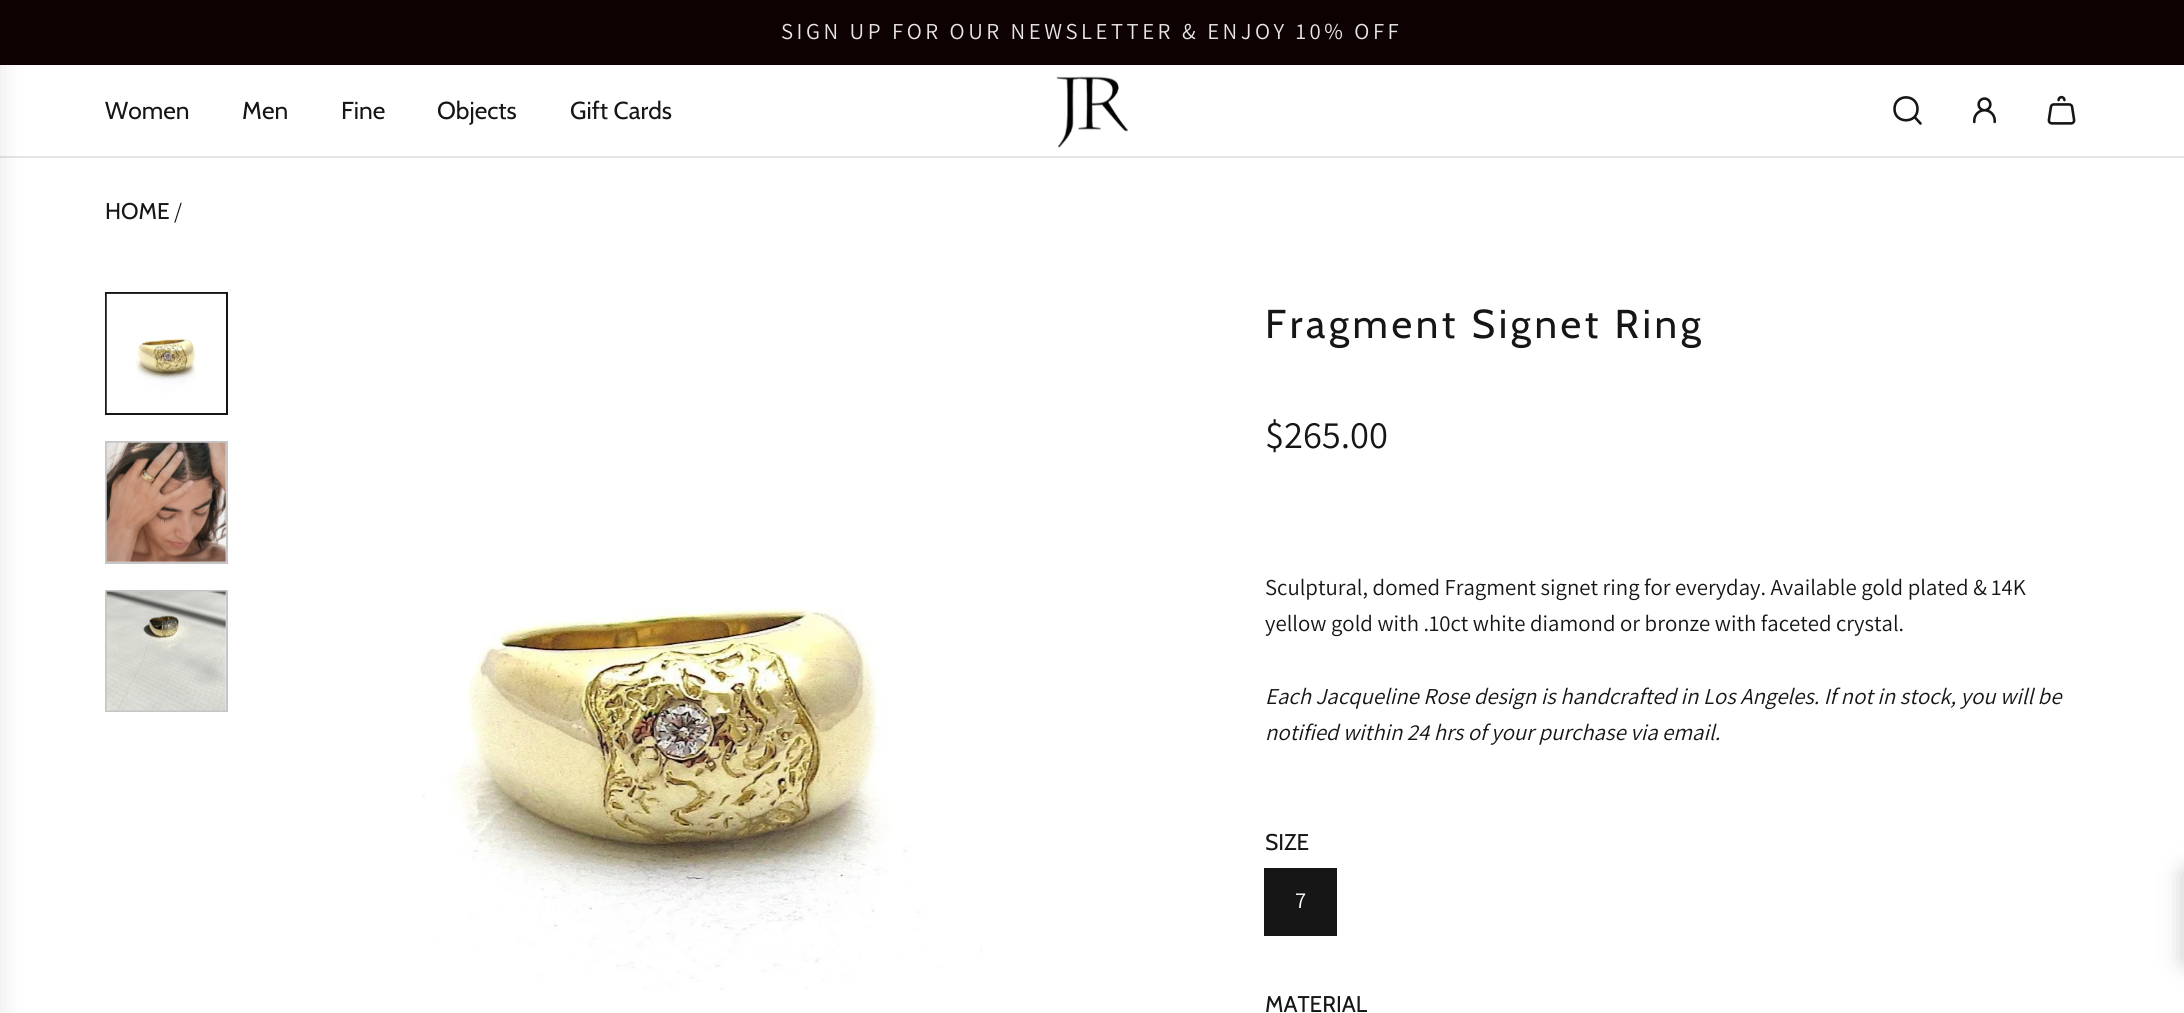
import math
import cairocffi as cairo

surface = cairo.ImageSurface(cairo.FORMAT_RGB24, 2184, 1013)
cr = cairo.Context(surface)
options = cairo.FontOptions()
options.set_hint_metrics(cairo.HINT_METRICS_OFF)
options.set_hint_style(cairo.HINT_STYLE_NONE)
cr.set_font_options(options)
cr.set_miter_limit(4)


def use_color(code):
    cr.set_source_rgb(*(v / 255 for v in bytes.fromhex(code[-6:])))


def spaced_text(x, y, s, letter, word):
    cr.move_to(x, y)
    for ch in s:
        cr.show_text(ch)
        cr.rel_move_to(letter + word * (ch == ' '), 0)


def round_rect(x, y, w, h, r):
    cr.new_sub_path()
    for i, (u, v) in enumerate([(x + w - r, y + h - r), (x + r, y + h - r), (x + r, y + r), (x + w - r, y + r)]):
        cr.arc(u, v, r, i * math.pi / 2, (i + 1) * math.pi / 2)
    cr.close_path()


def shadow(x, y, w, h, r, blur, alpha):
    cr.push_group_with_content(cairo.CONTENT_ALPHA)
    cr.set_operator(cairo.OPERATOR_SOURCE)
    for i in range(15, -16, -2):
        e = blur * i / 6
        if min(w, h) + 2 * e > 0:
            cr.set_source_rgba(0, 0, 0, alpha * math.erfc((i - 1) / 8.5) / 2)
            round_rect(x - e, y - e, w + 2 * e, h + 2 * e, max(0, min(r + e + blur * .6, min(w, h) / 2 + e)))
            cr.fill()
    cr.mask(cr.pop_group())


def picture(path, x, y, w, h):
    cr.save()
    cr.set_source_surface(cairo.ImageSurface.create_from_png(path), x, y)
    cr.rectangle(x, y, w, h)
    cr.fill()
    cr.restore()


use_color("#ffffff")
cr.paint()
use_color("#0e0101")
cr.rectangle(0, 0, 2184, 65)
cr.fill()
cr.select_font_face("Assistant")
cr.set_font_size(22.75)
use_color("#e7e5e5")
spaced_text(781, 39, "SIGN UP FOR OUR NEWSLETTER & ENJOY 10% OFF", 3.5, 0)
use_color("#e6e5e7")
cr.rectangle(0, 156, 2184, 2)
cr.fill()
use_color("#000000")
shadow(-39, 9, 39, 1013, 0, 13, 0.1)
cr.select_font_face("Cabin")
cr.set_font_size(24.5)
use_color("#161616")
cr.move_to(105, 119)
cr.show_text("Women")
cr.move_to(242, 119)
cr.show_text("Men")
cr.move_to(341, 119)
cr.show_text("Fine")
cr.move_to(437, 119)
cr.show_text("Objects")
cr.move_to(570, 119)
cr.show_text("Gift Cards")
picture("img1.png", 1056, 76, 73, 72)
cr.new_path()
cr.move_to(1915, 117.5)
cr.line_to(1920.5, 123.5)
cr.move_to(1894.5, 109)
cr.curve_to(1894.5, 124, 1917.5, 124, 1917.5, 109)
cr.curve_to(1917.5, 93.5, 1894.5, 93.5, 1894.5, 109)
cr.close_path()
cr.set_line_width(2.6)
cr.set_line_cap(cairo.LINE_CAP_ROUND)
cr.set_line_join(cairo.LINE_JOIN_ROUND)
cr.stroke()
picture("img2.png", 1973, 97, 23, 27)
picture("img3.png", 2047, 95, 29, 30)
cr.set_font_size(22.75)
cr.move_to(105, 219)
cr.show_text("HOME")
cr.select_font_face("Assistant")
cr.move_to(174, 219)
cr.show_text("/")
cr.rectangle(106, 293, 121, 121)
cr.set_line_width(2)
cr.set_line_cap(cairo.LINE_CAP_BUTT)
cr.set_line_join(cairo.LINE_JOIN_MITER)
cr.stroke()
picture("img4.png", 106, 293, 120, 120)
cr.rectangle(106, 442, 121, 121)
use_color("#c5c5c5")
cr.stroke()
picture("img5.png", 106, 442, 120, 120)
cr.rectangle(106, 591, 121, 120)
cr.stroke()
picture("img6.png", 106, 591, 120, 120)
picture("img7.png", 421, 608, 562, 382)
cr.select_font_face("Cabin")
cr.set_font_size(40.25)
use_color("#161616")
spaced_text(1265, 338, "Fragment Signet Ring", 3.6, 0)
cr.select_font_face("Assistant")
cr.set_font_size(38.5)
cr.move_to(1265, 448)
cr.show_text("$265.00")
cr.set_font_size(22.75)
cr.move_to(1265, 595)
cr.show_text("Sculptural, domed Fragment signet ring for everyday. Available gold plated & 14K")
cr.move_to(1265, 631)
cr.show_text("yellow gold with .10ct white diamond or bronze with faceted crystal.")
cr.select_font_face("Assistant", cairo.FONT_SLANT_ITALIC)
cr.move_to(1265, 704)
cr.show_text("Each Jacqueline Rose design is handcrafted in Los Angeles. If not in stock, you will be")
cr.move_to(1265, 740)
cr.show_text("notified within 24 hrs of your purchase via email.")
cr.select_font_face("Cabin")
cr.move_to(1265, 850)
cr.show_text("SIZE")
cr.rectangle(1266, 870, 69, 64)
cr.fill()
cr.rectangle(1265, 869, 71, 66)
cr.stroke()
cr.select_font_face("Assistant")
use_color("#ffffff")
cr.move_to(1295, 908)
cr.show_text("7")
cr.select_font_face("Cabin")
use_color("#161616")
cr.move_to(1265, 1012)
cr.show_text("MATERIAL")
use_color("#757575")
shadow(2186, 873, 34, 88, 0, 12, 0.5)
surface.write_to_png("result.png")
